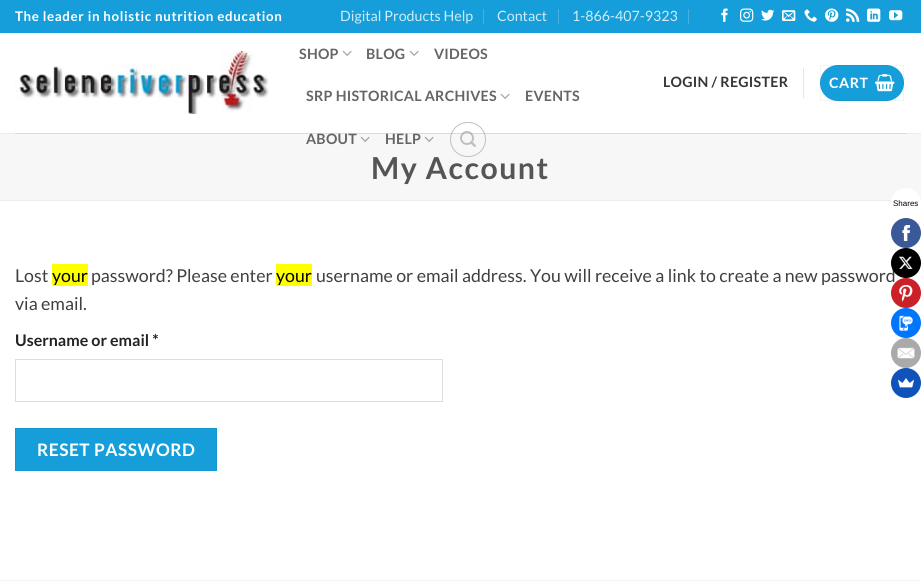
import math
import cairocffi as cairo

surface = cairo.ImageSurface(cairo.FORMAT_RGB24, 921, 586)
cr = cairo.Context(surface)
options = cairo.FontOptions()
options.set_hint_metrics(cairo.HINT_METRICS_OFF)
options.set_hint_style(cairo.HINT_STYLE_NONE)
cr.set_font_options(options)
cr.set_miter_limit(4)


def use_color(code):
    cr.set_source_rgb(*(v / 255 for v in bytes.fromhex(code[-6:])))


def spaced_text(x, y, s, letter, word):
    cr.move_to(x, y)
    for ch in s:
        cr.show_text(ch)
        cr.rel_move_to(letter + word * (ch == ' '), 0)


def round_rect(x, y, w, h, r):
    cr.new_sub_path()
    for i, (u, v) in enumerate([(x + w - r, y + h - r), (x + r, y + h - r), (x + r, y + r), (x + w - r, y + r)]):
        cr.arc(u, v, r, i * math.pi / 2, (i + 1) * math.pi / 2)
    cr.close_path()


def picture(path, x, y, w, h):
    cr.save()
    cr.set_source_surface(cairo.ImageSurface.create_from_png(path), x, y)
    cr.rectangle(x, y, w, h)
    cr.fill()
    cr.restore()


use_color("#ffffff")
cr.paint()
use_color("#159ed9")
cr.rectangle(0, 0, 921, 33)
cr.fill()
cr.select_font_face("Lato", cairo.FONT_SLANT_NORMAL, cairo.FONT_WEIGHT_BOLD)
cr.set_font_size(13.3)
use_color("#ffffff")
spaced_text(15, 21, "The leader in holistic nutrition education", 0.65, 0)
cr.select_font_face("Lato")
cr.set_font_size(14.25)
use_color("#d0ecf7")
cr.move_to(340, 21)
cr.show_text("Digital Products Help")
use_color("#44b1e1")
cr.rectangle(483, 9, 1, 15)
cr.fill()
use_color("#d0ecf7")
cr.move_to(497, 21)
cr.show_text("Contact")
use_color("#44b1e1")
cr.rectangle(558, 9, 1, 15)
cr.fill()
use_color("#d0ecf7")
cr.move_to(572, 21)
cr.show_text("1-866-407-9323")
use_color("#44b1e1")
cr.rectangle(688, 9, 1, 15)
cr.fill()
picture("img1.png", 721, 8, 7, 14)
picture("img2.png", 740, 8, 14, 14)
picture("img3.png", 761, 9, 14, 12)
picture("img4.png", 782, 10, 14, 11)
picture("img5.png", 804, 9, 13, 13)
picture("img6.png", 825, 8, 14, 14)
picture("img7.png", 846, 8, 14, 14)
picture("img8.png", 867, 8, 14, 14)
picture("img9.png", 889, 10, 14, 11)
picture("img10.png", 15, 51, 254, 63)
cr.select_font_face("Lato", cairo.FONT_SLANT_NORMAL, cairo.FONT_WEIGHT_BOLD)
use_color("#656565")
spaced_text(299, 59, "SHOP", 0.25, 0)
picture("img11.png", 342, 50, 10, 6)
spaced_text(366, 59, "BLOG", 0.25, 0)
picture("img11.png", 409, 50, 10, 6)
spaced_text(434, 59, "VIDEOS", 0.25, 0)
spaced_text(306, 101, "SRP HISTORICAL ARCHIVES", 0.25, 0)
picture("img11.png", 500, 93, 10, 6)
spaced_text(525, 101, "EVENTS", 0.25, 0)
use_color("#f7f7f7")
cr.rectangle(0, 134, 921, 66)
cr.fill()
use_color("#ececec")
cr.rectangle(0, 133, 921, 1)
cr.fill()
use_color("#656565")
spaced_text(306, 144, "ABOUT", 0.25, 0)
picture("img12.png", 360, 136, 10, 6)
spaced_text(385, 144, "HELP", 0.25, 0)
picture("img12.png", 424, 136, 10, 6)
round_rect(450.5, 122.5, 35, 34, 17)
use_color("#c0c0c0")
cr.set_line_width(1)
cr.stroke()
picture("img13.png", 460, 131, 16, 16)
use_color("#363636")
spaced_text(663, 87, "LOGIN / REGISTER", 0.25, 0)
use_color("#e6e6e6")
cr.rectangle(803, 68, 1, 30)
cr.fill()
use_color("#159ed9")
round_rect(820, 65, 84, 36, 18)
cr.fill()
cr.rectangle(820.5, 65.5, 83, 35)
cr.set_source_rgba(0, 0, 0, 0.05)
cr.stroke()
use_color("#ffffff")
spaced_text(829, 88, "CART", 0.5, 0)
picture("img14.png", 875, 74, 20, 18)
cr.set_source_rgba(0.247, 0.247, 0.247, 0.1)
cr.rectangle(15, 133, 891, 1)
cr.fill()
use_color("#ececec")
cr.rectangle(0, 200, 921, 1)
cr.fill()
cr.set_font_size(30.25)
use_color("#555555")
spaced_text(371, 179, "My Account", 1.5, 0)
cr.select_font_face("Lato")
cr.set_font_size(17.75)
use_color("#3f3f3f")
cr.move_to(15, 282)
cr.show_text("Lost")
use_color("#ffff00")
cr.rectangle(52, 264, 36, 22)
cr.fill()
use_color("#000000")
cr.move_to(52, 282)
cr.show_text("your")
use_color("#3f3f3f")
cr.move_to(91, 282)
cr.show_text("password? Please enter")
use_color("#ffff00")
cr.rectangle(276, 264, 36, 22)
cr.fill()
use_color("#000000")
cr.move_to(276, 282)
cr.show_text("your")
use_color("#3f3f3f")
cr.move_to(316, 282)
cr.show_text("username or email address. You will receive a link to create a new password")
cr.move_to(15, 310)
cr.show_text("via email.")
cr.select_font_face("Lato", cairo.FONT_SLANT_NORMAL, cairo.FONT_WEIGHT_BOLD)
cr.set_font_size(16)
use_color("#222222")
cr.move_to(15, 346)
cr.show_text("Username or email *")
cr.rectangle(15.5, 359.5, 427, 42)
use_color("#dddddd")
cr.stroke()
use_color("#159ed9")
cr.rectangle(15.5, 428.5, 201, 42)
cr.fill_preserve()
use_color("#1496ce")
cr.stroke()
cr.set_font_size(17.25)
use_color("#ffffff")
spaced_text(37, 456, "RESET PASSWORD", 0.5, 0)
use_color("#f2f2f2")
cr.rectangle(0, 580, 921, 1)
cr.fill()
use_color("#ffffff")
cr.arc(906, 203, 15, 0, 2 * math.pi)
cr.fill()
cr.select_font_face("Liberation Sans")
cr.set_font_size(8)
use_color("#000000")
cr.move_to(893, 206)
cr.show_text("Shares")
use_color("#3b5998")
cr.new_path()
cr.arc(906, 233, 15, 0, 2 * math.pi)
cr.fill()
picture("img15.png", 902, 225, 8, 16)
use_color("#000000")
cr.arc(906, 263, 15, 0, 2 * math.pi)
cr.fill()
picture("img16.png", 898, 256, 15, 13)
use_color("#cb2027")
cr.arc(906, 293, 15, 0, 2 * math.pi)
cr.fill()
picture("img17.png", 899, 285, 14, 17)
use_color("#0076ff")
cr.arc(906, 323, 15, 0, 2 * math.pi)
cr.fill()
picture("img18.png", 899, 315, 14, 16)
use_color("#aaaaaa")
cr.arc(906, 353, 15, 0, 2 * math.pi)
cr.fill()
picture("img19.png", 897, 347, 18, 12)
use_color("#0f52ba")
cr.arc(906, 383, 15, 0, 2 * math.pi)
cr.fill()
picture("img20.png", 898, 378, 16, 10)
surface.write_to_png("result.png")
